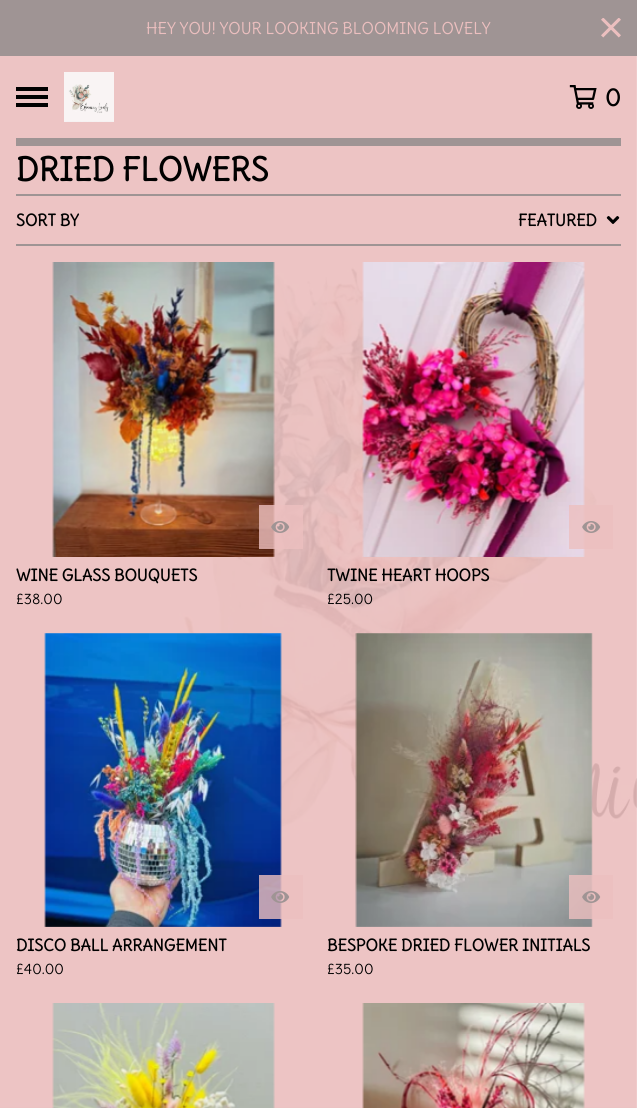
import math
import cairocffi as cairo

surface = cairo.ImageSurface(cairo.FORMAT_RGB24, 637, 1108)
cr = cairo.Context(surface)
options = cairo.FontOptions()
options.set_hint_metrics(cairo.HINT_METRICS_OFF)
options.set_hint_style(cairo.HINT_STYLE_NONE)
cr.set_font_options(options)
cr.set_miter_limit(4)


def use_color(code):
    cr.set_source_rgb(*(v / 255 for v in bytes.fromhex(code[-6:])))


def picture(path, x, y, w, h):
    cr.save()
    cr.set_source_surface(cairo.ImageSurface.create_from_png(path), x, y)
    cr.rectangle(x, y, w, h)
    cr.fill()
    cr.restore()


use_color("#ffffff")
cr.paint()
picture("img1.png", 0, 56, 637, 1052)
use_color("#9f9494")
cr.rectangle(0, 0, 637, 56)
cr.fill()
cr.select_font_face("Delius")
cr.set_font_size(16)
use_color("#ecbfbf")
cr.move_to(146, 34)
cr.show_text("HEY YOU! YOUR LOOKING BLOOMING LOVELY")
picture("img2.png", 601, 18, 20, 20)
use_color("#9f9494")
cr.rectangle(16, 138, 605, 8)
cr.fill()
use_color("#000000")
cr.rectangle(16, 95, 32, 4)
cr.fill()
cr.rectangle(16, 87, 32, 4)
cr.fill()
cr.rectangle(16, 103, 32, 4)
cr.fill()
picture("img3.png", 64, 72, 50, 50)
picture("img4.png", 569, 85, 28, 24)
cr.select_font_face("Delius", cairo.FONT_SLANT_NORMAL, cairo.FONT_WEIGHT_BOLD)
cr.set_font_size(24)
cr.move_to(605, 106)
cr.show_text("0")
use_color("#9f9494")
cr.rectangle(16, 244, 605, 2)
cr.fill()
cr.rectangle(16, 194, 605, 2)
cr.fill()
cr.set_font_size(32)
use_color("#000000")
cr.move_to(16, 181)
cr.show_text("DRIED FLOWERS")
cr.set_font_size(16)
cr.move_to(16, 226)
cr.show_text("SORT BY")
cr.move_to(518, 226)
cr.show_text("FEATURED")
picture("img5.png", 606, 216, 14, 8)
picture("img6.png", 52, 262, 223, 295)
cr.set_source_rgba(0.925, 0.749, 0.749, 0.8)
cr.rectangle(259, 505, 44, 44)
cr.fill()
picture("img7.png", 271, 521, 19, 12)
use_color("#000000")
cr.move_to(16, 581)
cr.show_text("WINE GLASS BOUQUETS")
cr.select_font_face("Delius")
cr.set_font_size(14.5)
cr.move_to(16, 604)
cr.show_text("£38.00")
picture("img8.png", 362, 262, 223, 295)
cr.set_source_rgba(0.925, 0.749, 0.749, 0.8)
cr.rectangle(569, 505, 44, 44)
cr.fill()
picture("img9.png", 582, 521, 19, 12)
cr.select_font_face("Delius", cairo.FONT_SLANT_NORMAL, cairo.FONT_WEIGHT_BOLD)
cr.set_font_size(16)
use_color("#000000")
cr.move_to(327, 581)
cr.show_text("TWINE HEART HOOPS")
cr.select_font_face("Delius")
cr.set_font_size(14.5)
cr.move_to(327, 604)
cr.show_text("£25.00")
picture("img10.png", 44, 633, 238, 294)
cr.set_source_rgba(0.925, 0.749, 0.749, 0.8)
cr.rectangle(259, 875, 44, 44)
cr.fill()
picture("img11.png", 271, 891, 19, 12)
cr.select_font_face("Delius", cairo.FONT_SLANT_NORMAL, cairo.FONT_WEIGHT_BOLD)
cr.set_font_size(16)
use_color("#000000")
cr.move_to(16, 951)
cr.show_text("DISCO BALL ARRANGEMENT")
cr.select_font_face("Delius")
cr.set_font_size(14.5)
cr.move_to(16, 974)
cr.show_text("£40.00")
picture("img12.png", 355, 633, 238, 294)
cr.set_source_rgba(0.925, 0.749, 0.749, 0.8)
cr.rectangle(569, 875, 44, 44)
cr.fill()
picture("img13.png", 582, 891, 19, 12)
cr.select_font_face("Delius", cairo.FONT_SLANT_NORMAL, cairo.FONT_WEIGHT_BOLD)
cr.set_font_size(16)
use_color("#000000")
cr.move_to(327, 951)
cr.show_text("BESPOKE DRIED FLOWER INITIALS")
cr.select_font_face("Delius")
cr.set_font_size(14.5)
cr.move_to(327, 974)
cr.show_text("£35.00")
picture("img14.png", 52, 1003, 223, 105)
picture("img15.png", 362, 1003, 223, 105)
surface.write_to_png("result.png")
